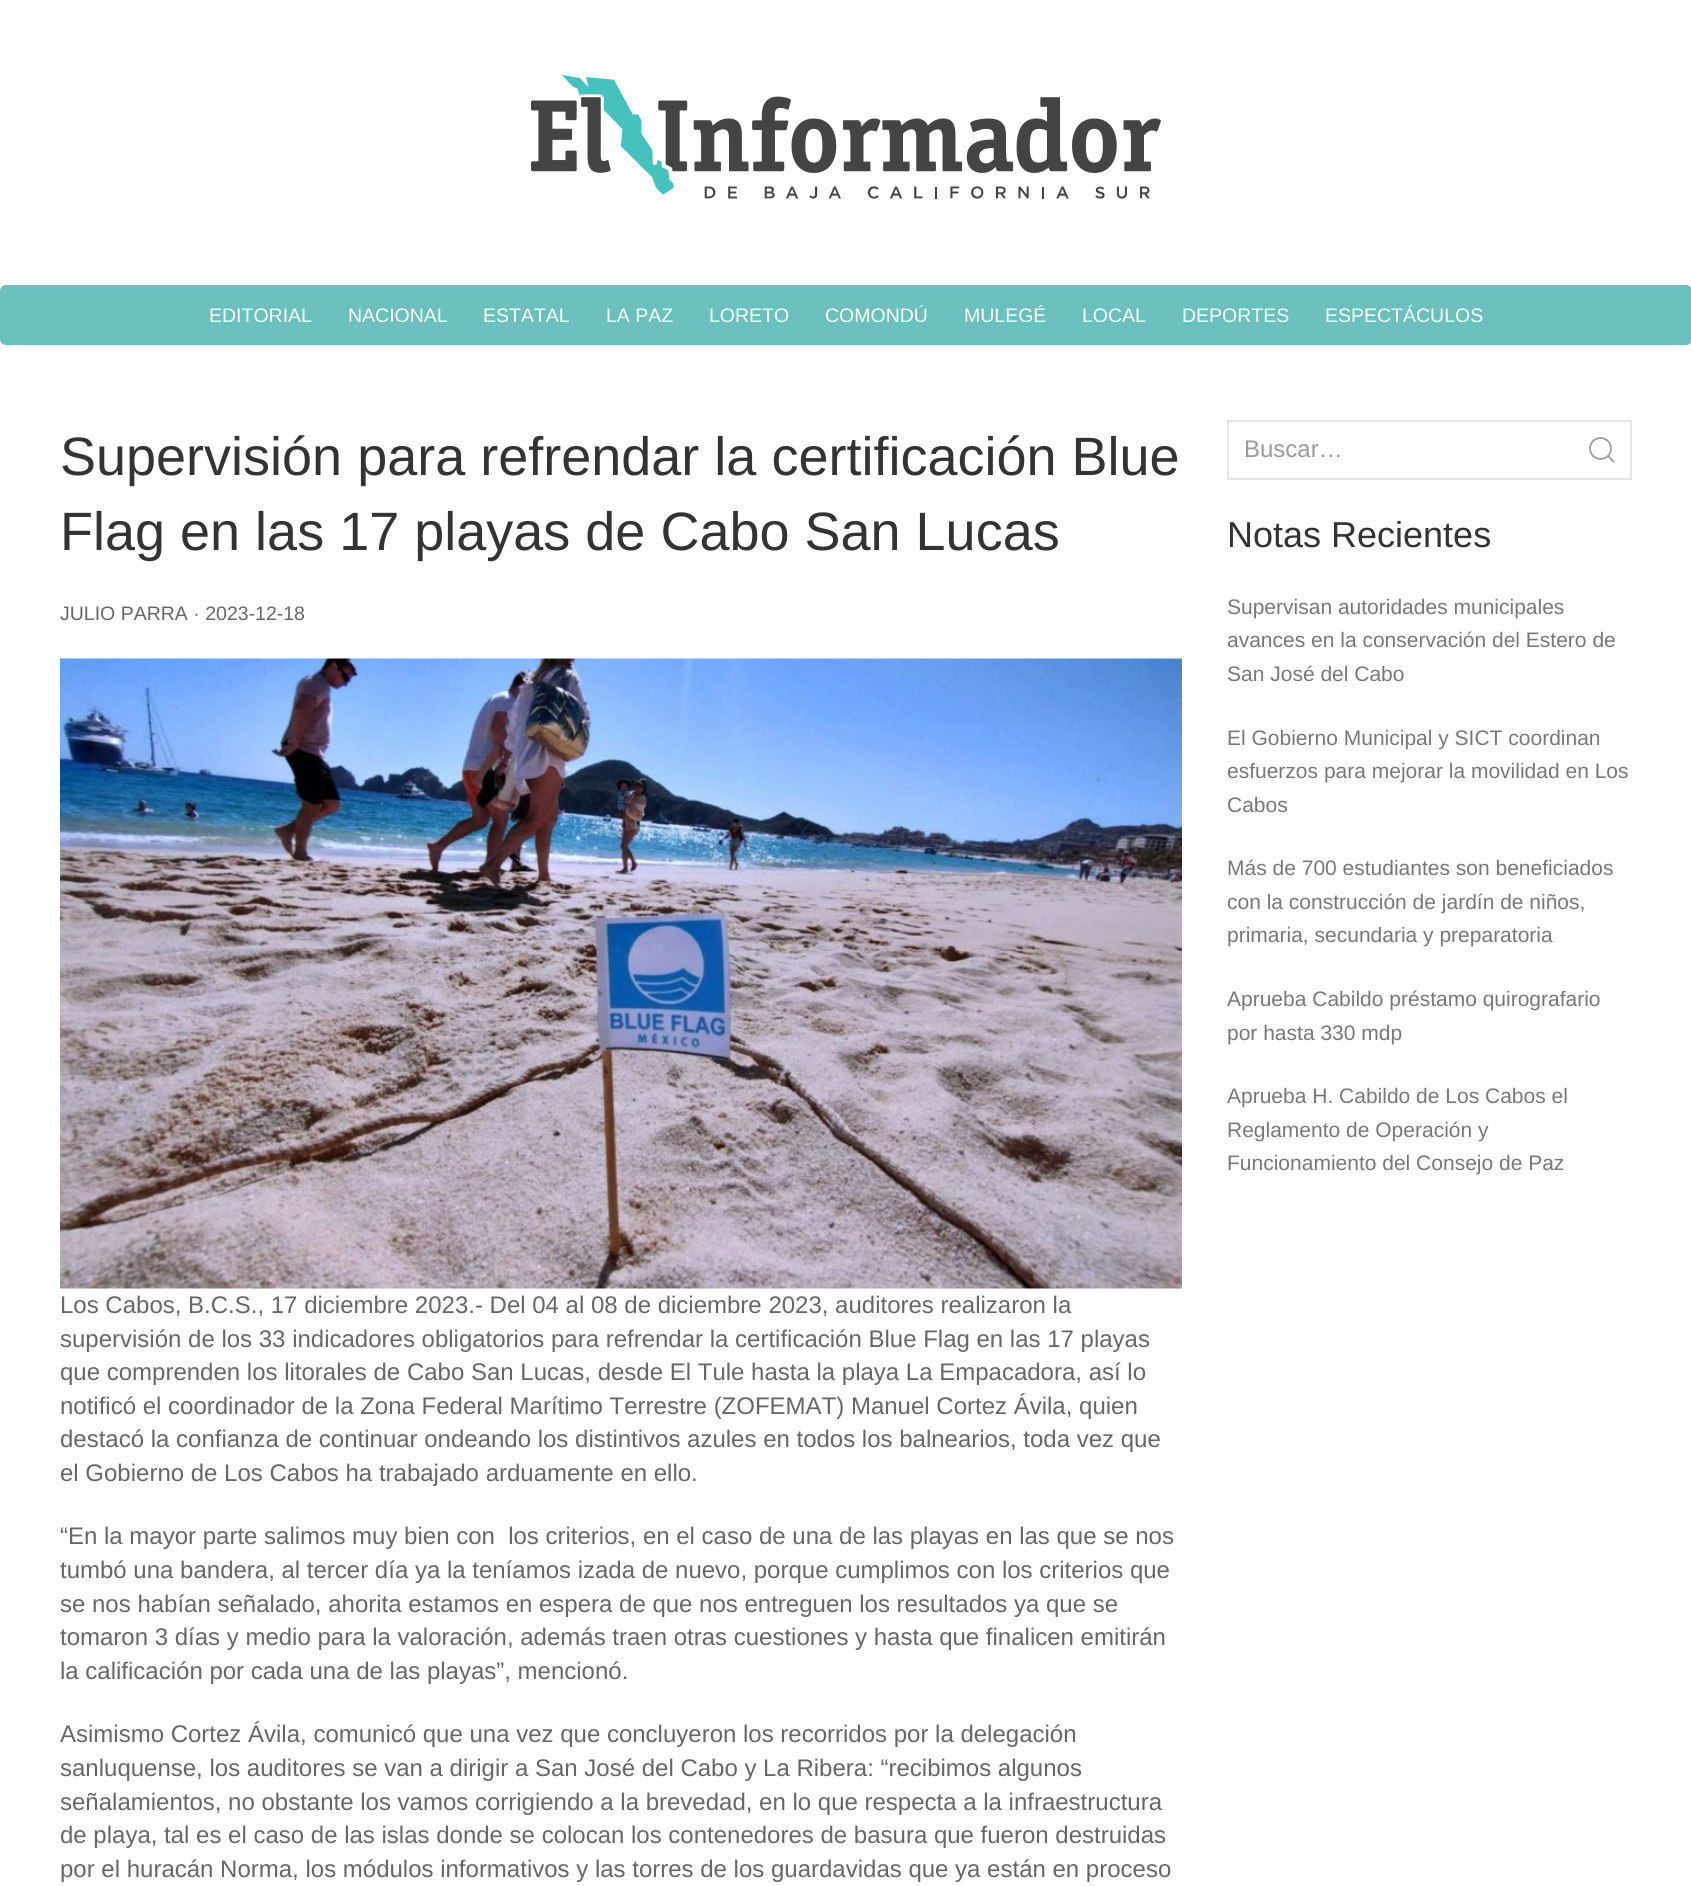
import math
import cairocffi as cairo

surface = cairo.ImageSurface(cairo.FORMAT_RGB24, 1691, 1886)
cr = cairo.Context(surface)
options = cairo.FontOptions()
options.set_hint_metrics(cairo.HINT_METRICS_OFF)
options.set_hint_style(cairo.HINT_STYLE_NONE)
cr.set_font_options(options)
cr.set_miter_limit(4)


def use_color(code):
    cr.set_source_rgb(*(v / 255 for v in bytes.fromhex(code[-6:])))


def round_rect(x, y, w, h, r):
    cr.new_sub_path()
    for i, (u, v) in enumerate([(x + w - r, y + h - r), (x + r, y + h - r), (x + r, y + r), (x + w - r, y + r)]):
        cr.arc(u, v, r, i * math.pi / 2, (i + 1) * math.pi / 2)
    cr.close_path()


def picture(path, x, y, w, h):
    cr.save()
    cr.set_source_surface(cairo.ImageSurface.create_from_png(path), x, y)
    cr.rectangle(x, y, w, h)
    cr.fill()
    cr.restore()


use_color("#ffffff")
cr.paint()
picture("img1.png", 531, 75, 630, 124)
use_color("#6bbfbd")
round_rect(0, 285, 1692, 60, 6)
cr.fill()
cr.select_font_face("Liberation Sans")
cr.set_font_size(19.5)
use_color("#ffffff")
cr.move_to(209, 322)
cr.show_text("EDITORIAL")
cr.move_to(348, 322)
cr.show_text("NACIONAL")
cr.move_to(483, 322)
cr.show_text("ESTATAL")
cr.move_to(606, 322)
cr.show_text("LA PAZ")
cr.move_to(709, 322)
cr.show_text("LORETO")
cr.move_to(825, 322)
cr.show_text("COMONDÚ")
cr.move_to(964, 322)
cr.show_text("MULEGÉ")
cr.move_to(1082, 322)
cr.show_text("LOCAL")
cr.move_to(1182, 322)
cr.show_text("DEPORTES")
cr.move_to(1325, 322)
cr.show_text("ESPECTÁCULOS")
cr.set_font_size(54)
use_color("#333333")
cr.move_to(60, 475)
cr.show_text("Supervisión para refrendar la certificación Blue")
cr.move_to(60, 550)
cr.show_text("Flag en las 17 playas de Cabo San Lucas")
cr.set_font_size(19.5)
use_color("#666666")
cr.move_to(60, 620)
cr.show_text("JULIO PARRA · 2023-12-18")
picture("img2.png", 60, 658, 1122, 631)
cr.set_font_size(24)
cr.move_to(60, 1313)
cr.show_text("Los Cabos, B.C.S., 17 diciembre 2023.- Del 04 al 08 de diciembre 2023, auditores realizaron la")
cr.move_to(60, 1347)
cr.show_text("supervisión de los 33 indicadores obligatorios para refrendar la certificación Blue Flag en las 17 playas")
cr.move_to(60, 1380)
cr.show_text("que comprenden los litorales de Cabo San Lucas, desde El Tule hasta la playa La Empacadora, así lo")
cr.move_to(60, 1414)
cr.show_text("notificó el coordinador de la Zona Federal Marítimo Terrestre (ZOFEMAT) Manuel Cortez Ávila, quien")
cr.move_to(60, 1447)
cr.show_text("destacó la confianza de continuar ondeando los distintivos azules en todos los balnearios, toda vez que")
cr.move_to(60, 1481)
cr.show_text("el Gobierno de Los Cabos ha trabajado arduamente en ello.")
cr.move_to(60, 1544)
cr.show_text("“En la mayor parte salimos muy bien con  los criterios, en el caso de una de las playas en las que se nos")
cr.move_to(60, 1578)
cr.show_text("tumbó una bandera, al tercer día ya la teníamos izada de nuevo, porque cumplimos con los criterios que")
cr.move_to(60, 1612)
cr.show_text("se nos habían señalado, ahorita estamos en espera de que nos entreguen los resultados ya que se")
cr.move_to(60, 1645)
cr.show_text("tomaron 3 días y medio para la valoración, además traen otras cuestiones y hasta que finalicen emitirán")
cr.move_to(60, 1679)
cr.show_text("la calificación por cada una de las playas”, mencionó.")
cr.move_to(60, 1742)
cr.show_text("Asimismo Cortez Ávila, comunicó que una vez que concluyeron los recorridos por la delegación")
cr.move_to(60, 1776)
cr.show_text("sanluquense, los auditores se van a dirigir a San José del Cabo y La Ribera: “recibimos algunos")
cr.move_to(60, 1810)
cr.show_text("señalamientos, no obstante los vamos corrigiendo a la brevedad, en lo que respecta a la infraestructura")
cr.move_to(60, 1843)
cr.show_text("de playa, tal es el caso de las islas donde se colocan los contenedores de basura que fueron destruidas")
cr.move_to(60, 1877)
cr.show_text("por el huracán Norma, los módulos informativos y las torres de los guardavidas que ya están en proceso")
cr.rectangle(1228, 421, 403, 58)
use_color("#e5e5e5")
cr.stroke()
use_color("#999999")
cr.move_to(1244, 457)
cr.show_text("Buscar…")
cr.new_path()
cr.arc(1600.5, 448.5, 10.5, 0, 2 * math.pi)
cr.set_line_width(1.7)
cr.stroke()
cr.new_path()
cr.move_to(1608, 456)
cr.line_to(1614, 462)
cr.close_path()
cr.stroke()
cr.set_font_size(36)
use_color("#333333")
cr.move_to(1227, 547)
cr.show_text("Notas Recientes")
cr.set_font_size(21)
use_color("#777777")
cr.move_to(1227, 614)
cr.show_text("Supervisan autoridades municipales")
cr.move_to(1227, 647)
cr.show_text("avances en la conservación del Estero de")
cr.move_to(1227, 681)
cr.show_text("San José del Cabo")
cr.move_to(1227, 745)
cr.show_text("El Gobierno Municipal y SICT coordinan")
cr.move_to(1227, 778)
cr.show_text("esfuerzos para mejorar la movilidad en Los")
cr.move_to(1227, 812)
cr.show_text("Cabos")
cr.move_to(1227, 875)
cr.show_text("Más de 700 estudiantes son beneficiados")
cr.move_to(1227, 909)
cr.show_text("con la construcción de jardín de niños,")
cr.move_to(1227, 942)
cr.show_text("primaria, secundaria y preparatoria")
cr.move_to(1227, 1006)
cr.show_text("Aprueba Cabildo préstamo quirografario")
cr.move_to(1227, 1040)
cr.show_text("por hasta 330 mdp")
cr.move_to(1227, 1103)
cr.show_text("Aprueba H. Cabildo de Los Cabos el")
cr.move_to(1227, 1137)
cr.show_text("Reglamento de Operación y")
cr.move_to(1227, 1170)
cr.show_text("Funcionamiento del Consejo de Paz")
surface.write_to_png("result.png")
